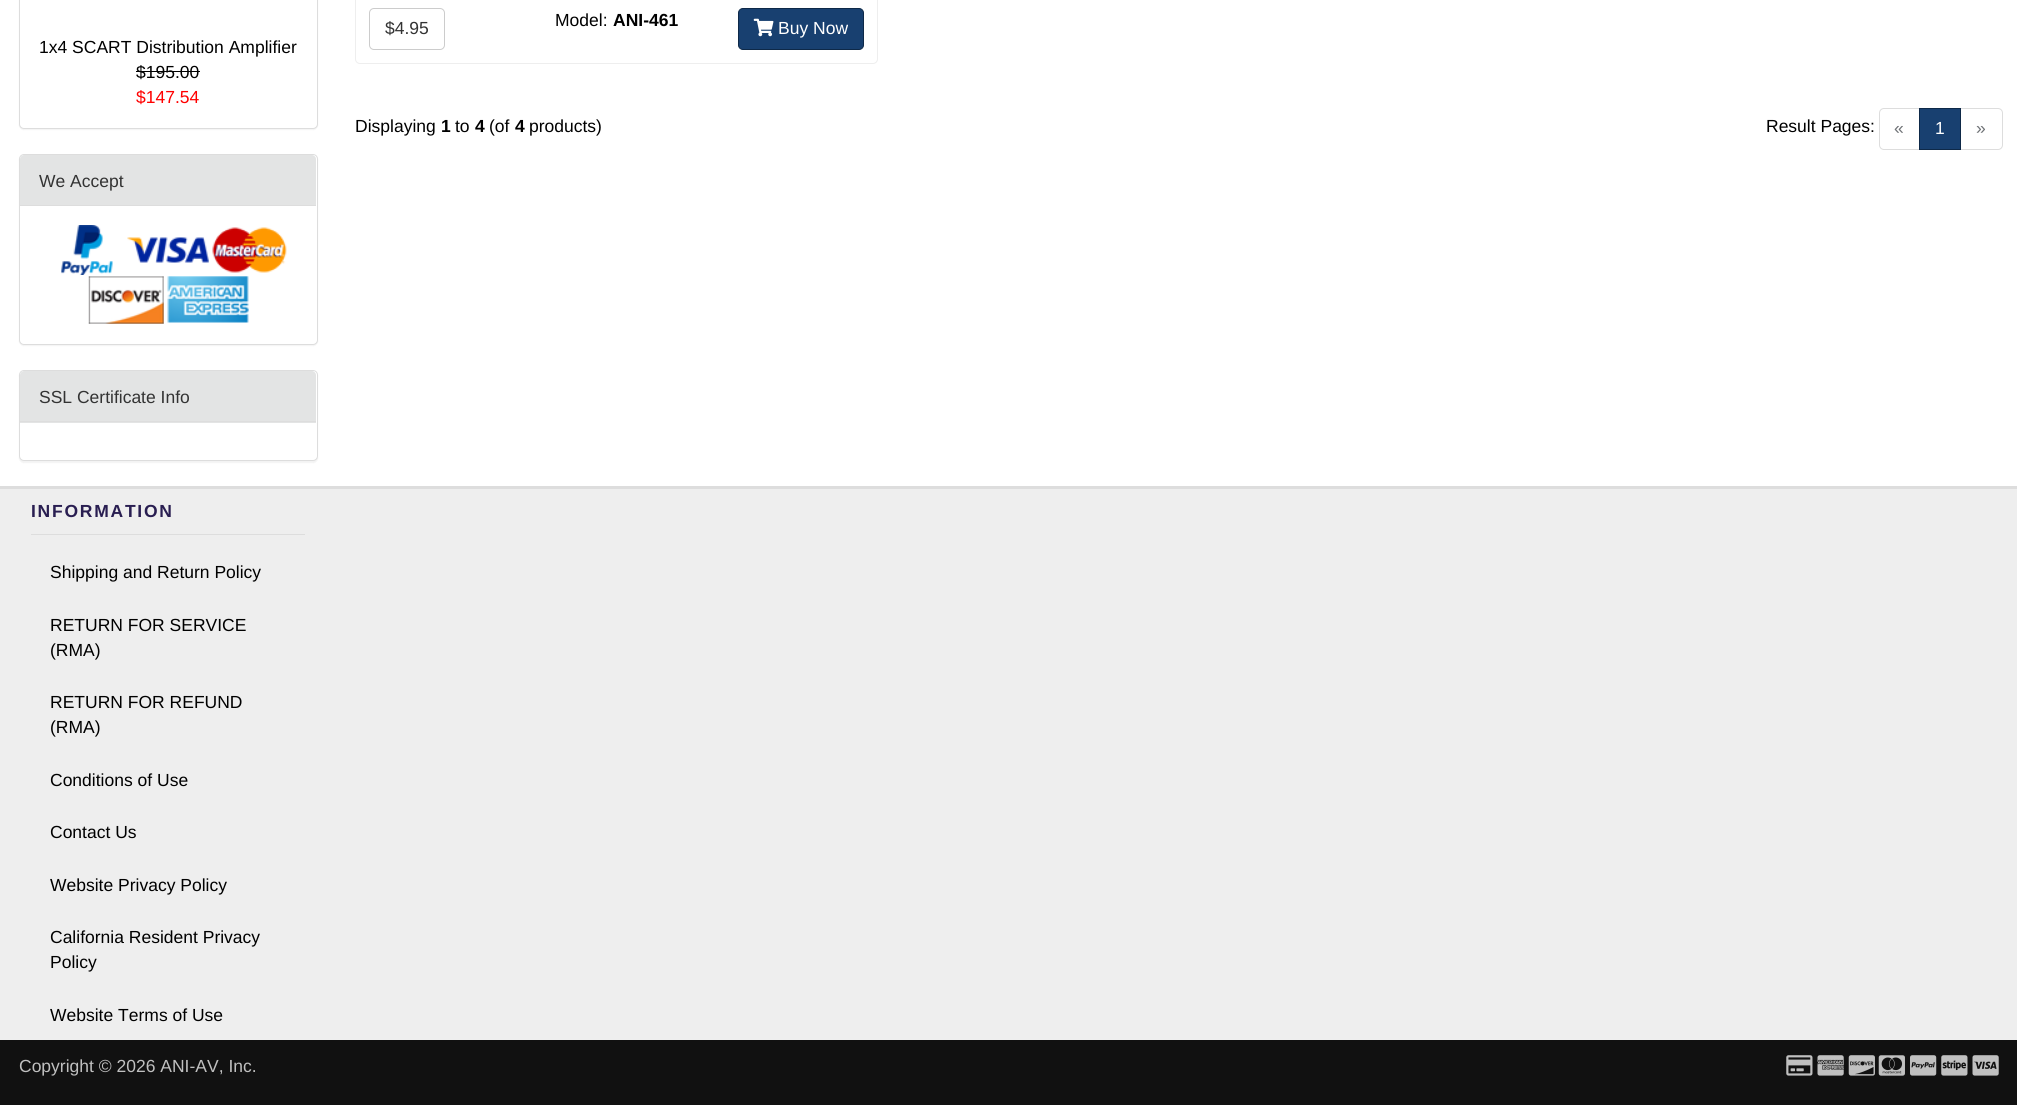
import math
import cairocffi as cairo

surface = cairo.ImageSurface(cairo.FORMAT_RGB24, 2017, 1105)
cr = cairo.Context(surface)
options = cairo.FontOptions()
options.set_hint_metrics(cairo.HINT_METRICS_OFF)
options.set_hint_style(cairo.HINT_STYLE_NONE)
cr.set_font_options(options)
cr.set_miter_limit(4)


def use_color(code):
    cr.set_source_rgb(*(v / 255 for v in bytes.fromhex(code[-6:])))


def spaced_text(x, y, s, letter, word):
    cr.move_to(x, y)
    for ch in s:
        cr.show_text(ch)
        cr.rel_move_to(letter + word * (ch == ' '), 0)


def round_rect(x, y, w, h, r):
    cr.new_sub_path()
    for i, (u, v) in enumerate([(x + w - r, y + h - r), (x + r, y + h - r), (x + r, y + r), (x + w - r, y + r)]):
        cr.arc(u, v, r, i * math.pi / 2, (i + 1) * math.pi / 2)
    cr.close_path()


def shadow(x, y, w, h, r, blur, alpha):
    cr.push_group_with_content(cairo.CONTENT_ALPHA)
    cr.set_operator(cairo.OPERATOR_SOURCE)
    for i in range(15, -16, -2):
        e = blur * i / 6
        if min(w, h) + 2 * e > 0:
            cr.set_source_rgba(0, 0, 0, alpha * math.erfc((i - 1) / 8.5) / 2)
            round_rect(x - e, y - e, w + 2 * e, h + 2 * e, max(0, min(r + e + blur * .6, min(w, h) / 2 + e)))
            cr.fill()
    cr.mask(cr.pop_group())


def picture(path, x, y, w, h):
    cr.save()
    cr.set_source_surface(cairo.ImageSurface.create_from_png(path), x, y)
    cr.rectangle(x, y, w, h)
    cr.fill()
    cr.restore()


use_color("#ffffff")
cr.paint()
use_color("#000000")
shadow(19, -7, 299, 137, 5, 0.5, 0.05)
use_color("#ffffff")
round_rect(19.5, -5.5, 298, 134, 4.5)
cr.fill_preserve()
use_color("#dddddd")
cr.set_line_width(1)
cr.stroke()
cr.select_font_face("Liberation Sans")
cr.set_font_size(17.5)
use_color("#000000")
cr.move_to(39, 53)
cr.show_text("1x4 SCART Distribution Amplifier")
cr.move_to(136, 78)
cr.show_text("$195.00")
cr.rectangle(136, 71, 64, 1)
cr.fill()
use_color("#ff0000")
cr.move_to(136, 103)
cr.show_text("$147.54")
use_color("#000000")
shadow(19, 155, 299, 191, 5, 0.5, 0.05)
use_color("#ffffff")
round_rect(19.5, 154.5, 298, 190, 4.5)
cr.fill_preserve()
use_color("#dddddd")
cr.stroke()
use_color("#e3e4e4")
cr.new_path()
cr.move_to(24, 155)
cr.line_to(312, 155)
cr.curve_to(314, 155, 316, 157, 316, 159)
cr.line_to(316, 206)
cr.line_to(20, 206)
cr.line_to(20, 159)
cr.curve_to(20, 157, 22, 155, 24, 155)
cr.close_path()
cr.fill()
use_color("#dddddd")
cr.rectangle(20, 205, 296, 1)
cr.fill()
use_color("#333333")
cr.move_to(39, 187)
cr.show_text("We Accept")
picture("img1.png", 61, 225, 52, 50)
picture("img2.png", 127, 237, 82, 26)
picture("img3.png", 212, 227, 75, 46)
picture("img4.png", 88, 276, 76, 48)
picture("img5.png", 167, 276, 82, 47)
use_color("#000000")
shadow(19, 371, 299, 92, 5, 0.5, 0.05)
use_color("#ffffff")
round_rect(19.5, 370.5, 298, 90, 4.5)
cr.fill_preserve()
use_color("#dddddd")
cr.stroke()
use_color("#e3e4e4")
cr.new_path()
cr.move_to(24, 371)
cr.line_to(312, 371)
cr.curve_to(314, 371, 316, 373, 316, 375)
cr.line_to(316, 423)
cr.line_to(20, 423)
cr.line_to(20, 375)
cr.curve_to(20, 373, 22, 371, 24, 371)
cr.close_path()
cr.fill()
use_color("#dddddd")
cr.rectangle(20, 421, 296, 1)
cr.fill()
use_color("#333333")
cr.move_to(39, 403)
cr.show_text("SSL Certificate Info")
round_rect(355.5, -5.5, 522, 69, 4.5)
use_color("#eeeeee")
cr.stroke()
round_rect(369.5, 8.5, 75, 41, 4.5)
use_color("#cccccc")
cr.stroke()
use_color("#333333")
cr.move_to(385, 34)
cr.show_text("$4.95")
use_color("#000000")
cr.move_to(555, 26)
cr.show_text("Model:")
cr.select_font_face("Liberation Sans", cairo.FONT_SLANT_NORMAL, cairo.FONT_WEIGHT_BOLD)
cr.move_to(613, 26)
cr.show_text("ANI-461")
use_color("#184070")
round_rect(738.5, 8.5, 125, 41, 4.5)
cr.fill_preserve()
use_color("#0e2948")
cr.stroke()
picture("img6.png", 753, 18, 21, 19)
cr.select_font_face("Liberation Sans")
use_color("#ffffff")
cr.move_to(778, 34)
cr.show_text("Buy Now")
use_color("#000000")
cr.move_to(355, 132)
cr.show_text("Displaying")
cr.select_font_face("Liberation Sans", cairo.FONT_SLANT_NORMAL, cairo.FONT_WEIGHT_BOLD)
cr.move_to(441, 132)
cr.show_text("1")
cr.select_font_face("Liberation Sans")
cr.move_to(455, 132)
cr.show_text("to")
cr.select_font_face("Liberation Sans", cairo.FONT_SLANT_NORMAL, cairo.FONT_WEIGHT_BOLD)
cr.move_to(475, 132)
cr.show_text("4")
cr.select_font_face("Liberation Sans")
cr.move_to(489, 132)
cr.show_text("(of")
cr.select_font_face("Liberation Sans", cairo.FONT_SLANT_NORMAL, cairo.FONT_WEIGHT_BOLD)
cr.move_to(515, 132)
cr.show_text("4")
cr.select_font_face("Liberation Sans")
cr.move_to(529, 132)
cr.show_text("products)")
cr.move_to(1766, 132)
cr.show_text("Result Pages:")
cr.new_path()
cr.move_to(1884, 108.5)
cr.line_to(1919.5, 108.5)
cr.line_to(1919.5, 149.5)
cr.line_to(1884, 149.5)
cr.curve_to(1881.5, 149.5, 1879.5, 147.5, 1879.5, 145)
cr.line_to(1879.5, 113)
cr.curve_to(1879.5, 110.5, 1881.5, 108.5, 1884, 108.5)
cr.close_path()
use_color("#dddddd")
cr.stroke()
use_color("#6e7175")
cr.move_to(1894, 134)
cr.show_text("«")
cr.new_path()
cr.move_to(1960.5, 108.5)
cr.line_to(1998, 108.5)
cr.curve_to(2000.5, 108.5, 2002.5, 110.5, 2002.5, 113)
cr.line_to(2002.5, 145)
cr.curve_to(2002.5, 147.5, 2000.5, 149.5, 1998, 149.5)
cr.line_to(1960.5, 149.5)
cr.close_path()
use_color("#dddddd")
cr.stroke()
use_color("#184070")
cr.rectangle(1919.5, 108.5, 41, 41)
cr.fill_preserve()
use_color("#0e2948")
cr.stroke()
use_color("#ffffff")
cr.move_to(1935, 134)
cr.show_text("1")
use_color("#6e7175")
cr.move_to(1976, 134)
cr.show_text("»")
use_color("#eeeeee")
cr.rectangle(0, 489, 2017, 551)
cr.fill()
use_color("#dddddd")
cr.rectangle(0, 486, 2017, 3)
cr.fill()
cr.rectangle(31, 534, 274, 1)
cr.fill()
cr.select_font_face("Liberation Sans", cairo.FONT_SLANT_NORMAL, cairo.FONT_WEIGHT_BOLD)
use_color("#291e51")
spaced_text(31, 517, "INFORMATION", 1.75, 0)
cr.select_font_face("Liberation Sans")
use_color("#000000")
cr.move_to(50, 578)
cr.show_text("Shipping and Return Policy")
cr.move_to(50, 631)
cr.show_text("RETURN FOR SERVICE")
cr.move_to(50, 656)
cr.show_text("(RMA)")
cr.move_to(50, 708)
cr.show_text("RETURN FOR REFUND")
cr.move_to(50, 733)
cr.show_text("(RMA)")
cr.move_to(50, 786)
cr.show_text("Conditions of Use")
cr.move_to(50, 838)
cr.show_text("Contact Us")
cr.move_to(50, 891)
cr.show_text("Website Privacy Policy")
cr.move_to(50, 943)
cr.show_text("California Resident Privacy")
cr.move_to(50, 968)
cr.show_text("Policy")
cr.move_to(50, 1021)
cr.show_text("Website Terms of Use")
use_color("#111111")
cr.rectangle(0, 1040, 2017, 65)
cr.fill()
use_color("#c0c0c0")
cr.move_to(19, 1072)
cr.show_text("Copyright © 2026 ANI-AV, Inc.")
picture("img7.png", 1786, 1055, 27, 21)
picture("img8.png", 1817, 1055, 27, 21)
picture("img9.png", 1848, 1055, 27, 21)
picture("img10.png", 1878, 1055, 27, 21)
picture("img11.png", 1910, 1055, 27, 21)
picture("img12.png", 1941, 1055, 27, 21)
picture("img13.png", 1972, 1055, 27, 21)
surface.write_to_png("result.png")
